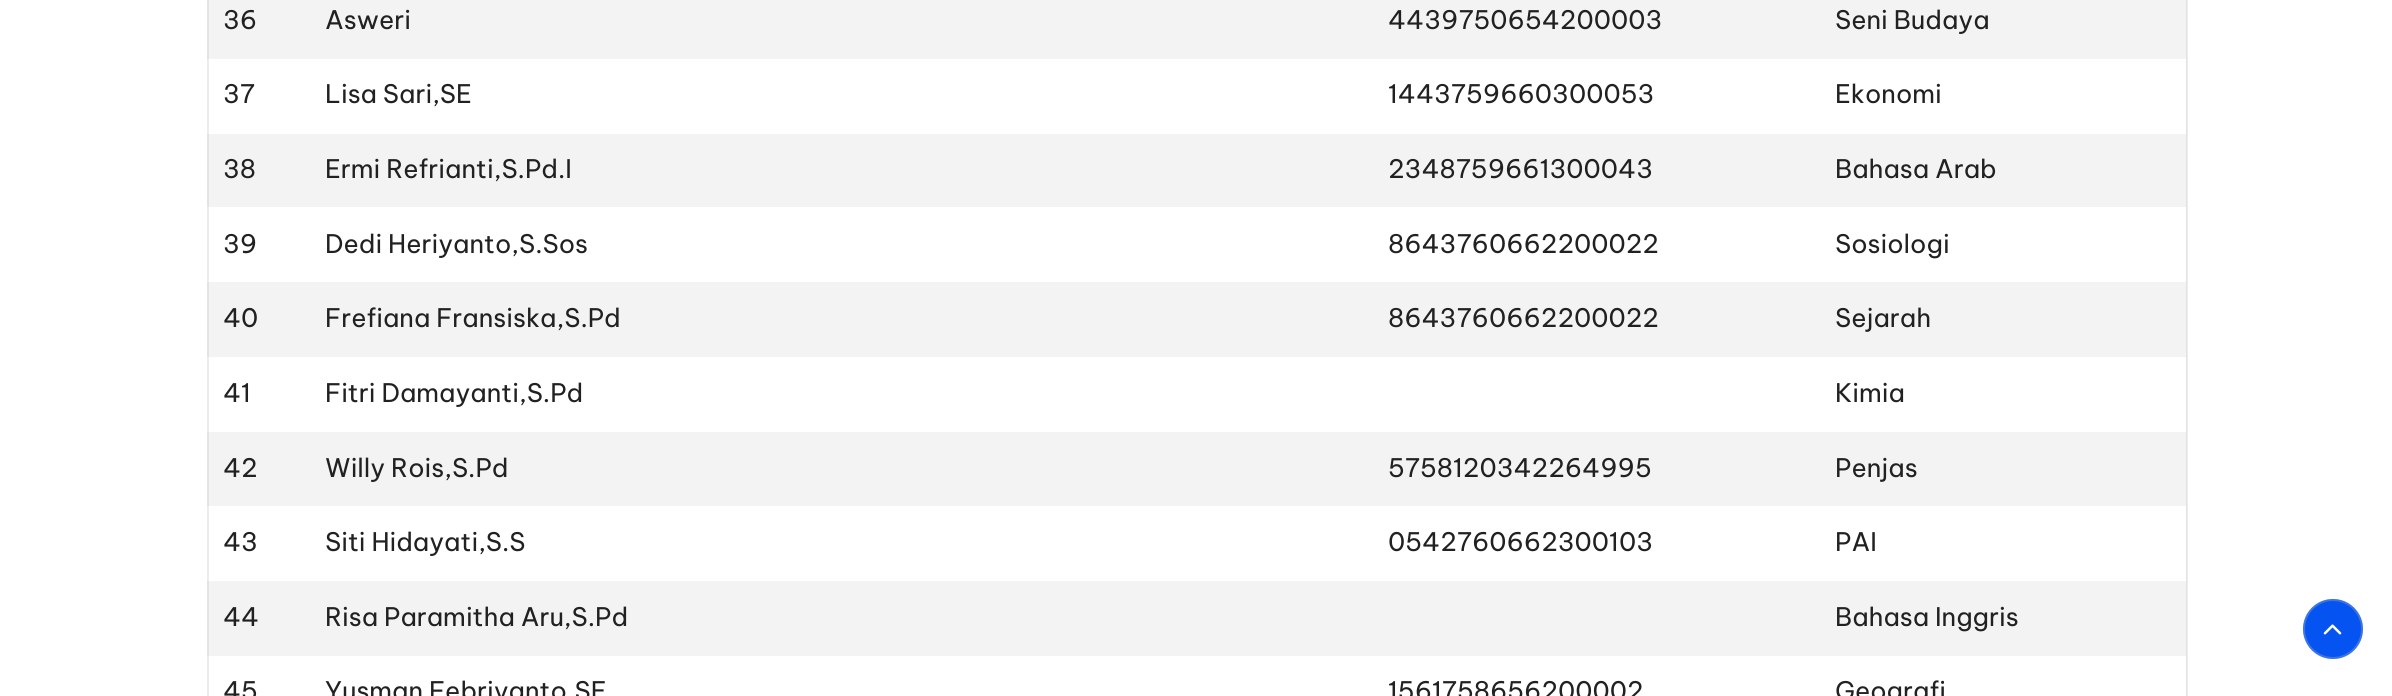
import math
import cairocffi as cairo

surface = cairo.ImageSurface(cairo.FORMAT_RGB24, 2392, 696)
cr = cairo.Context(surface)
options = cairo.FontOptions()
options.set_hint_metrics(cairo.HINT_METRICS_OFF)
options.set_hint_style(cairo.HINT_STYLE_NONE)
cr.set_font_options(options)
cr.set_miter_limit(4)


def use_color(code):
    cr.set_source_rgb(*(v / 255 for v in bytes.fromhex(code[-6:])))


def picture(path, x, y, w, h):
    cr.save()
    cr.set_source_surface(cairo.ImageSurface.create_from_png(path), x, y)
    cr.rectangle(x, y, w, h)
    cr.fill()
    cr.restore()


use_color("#ffffff")
cr.paint()
use_color("#ececec")
cr.rectangle(2187, 0, 1, 696)
cr.fill()
use_color("#f3f3f3")
cr.rectangle(209, 0, 1977, 656)
cr.fill()
use_color("#e3e3e3")
cr.rectangle(207, 0, 2, 656)
cr.fill()
cr.rectangle(2186, 0, 1, 696)
cr.fill()
cr.select_font_face("Be Vietnam Pro")
cr.set_font_size(25.5)
use_color("#212121")
cr.move_to(223, 29)
cr.show_text("36")
cr.move_to(325, 29)
cr.show_text("Asweri")
cr.move_to(1388, 29)
cr.show_text("4439750654200003")
cr.move_to(1835, 29)
cr.show_text("Seni Budaya")
use_color("#ffffff")
cr.rectangle(209, 59, 1977, 75)
cr.fill()
use_color("#ececec")
cr.rectangle(207, 59, 2, 75)
cr.fill()
use_color("#212121")
cr.move_to(223, 103)
cr.show_text("37")
cr.move_to(325, 103)
cr.show_text("Lisa Sari,SE")
cr.move_to(1388, 103)
cr.show_text("1443759660300053")
cr.move_to(1835, 103)
cr.show_text("Ekonomi")
cr.move_to(223, 178)
cr.show_text("38")
cr.move_to(325, 178)
cr.show_text("Ermi Refrianti,S.Pd.I")
cr.move_to(1388, 178)
cr.show_text("2348759661300043")
cr.move_to(1835, 178)
cr.show_text("Bahasa Arab")
use_color("#ffffff")
cr.rectangle(209, 207, 1977, 75)
cr.fill()
use_color("#ececec")
cr.rectangle(207, 207, 2, 75)
cr.fill()
use_color("#212121")
cr.move_to(223, 253)
cr.show_text("39")
cr.move_to(325, 253)
cr.show_text("Dedi Heriyanto,S.Sos")
cr.move_to(1388, 253)
cr.show_text("8643760662200022")
cr.move_to(1835, 253)
cr.show_text("Sosiologi")
cr.move_to(223, 327)
cr.show_text("40")
cr.move_to(325, 327)
cr.show_text("Frefiana Fransiska,S.Pd")
cr.move_to(1388, 327)
cr.show_text("8643760662200022")
cr.move_to(1835, 327)
cr.show_text("Sejarah")
use_color("#ffffff")
cr.rectangle(209, 357, 1977, 75)
cr.fill()
use_color("#ececec")
cr.rectangle(207, 357, 2, 75)
cr.fill()
use_color("#212121")
cr.move_to(223, 402)
cr.show_text("41")
cr.move_to(325, 402)
cr.show_text("Fitri Damayanti,S.Pd")
cr.move_to(1835, 402)
cr.show_text("Kimia")
cr.move_to(223, 477)
cr.show_text("42")
cr.move_to(325, 477)
cr.show_text("Willy Rois,S.Pd")
cr.move_to(1388, 477)
cr.show_text("5758120342264995")
cr.move_to(1835, 477)
cr.show_text("Penjas")
use_color("#ffffff")
cr.rectangle(209, 506, 1977, 75)
cr.fill()
use_color("#ececec")
cr.rectangle(207, 506, 2, 75)
cr.fill()
use_color("#212121")
cr.move_to(223, 551)
cr.show_text("43")
cr.move_to(325, 551)
cr.show_text("Siti Hidayati,S.S")
cr.move_to(1388, 551)
cr.show_text("0542760662300103")
cr.move_to(1835, 551)
cr.show_text("PAI")
cr.move_to(223, 626)
cr.show_text("44")
cr.move_to(325, 626)
cr.show_text("Risa Paramitha Aru,S.Pd")
cr.move_to(1835, 626)
cr.show_text("Bahasa Inggris")
use_color("#ececec")
cr.rectangle(207, 656, 2, 40)
cr.fill()
use_color("#212121")
cr.move_to(223, 700)
cr.show_text("45")
cr.move_to(325, 700)
cr.show_text("Yusman Febriyanto,SE")
cr.move_to(1388, 700)
cr.show_text("1561758656200002")
cr.move_to(1835, 700)
cr.show_text("Geografi")
use_color("#0554f2")
cr.new_path()
cr.arc(2333, 629, 30, 0, 2 * math.pi)
cr.fill()
cr.arc(2333, 629, 29, 0, 2 * math.pi)
cr.set_source_rgba(0.745, 0.745, 0.745, 0.3)
cr.stroke()
picture("img1.png", 2323, 624, 19, 11)
surface.write_to_png("result.png")
